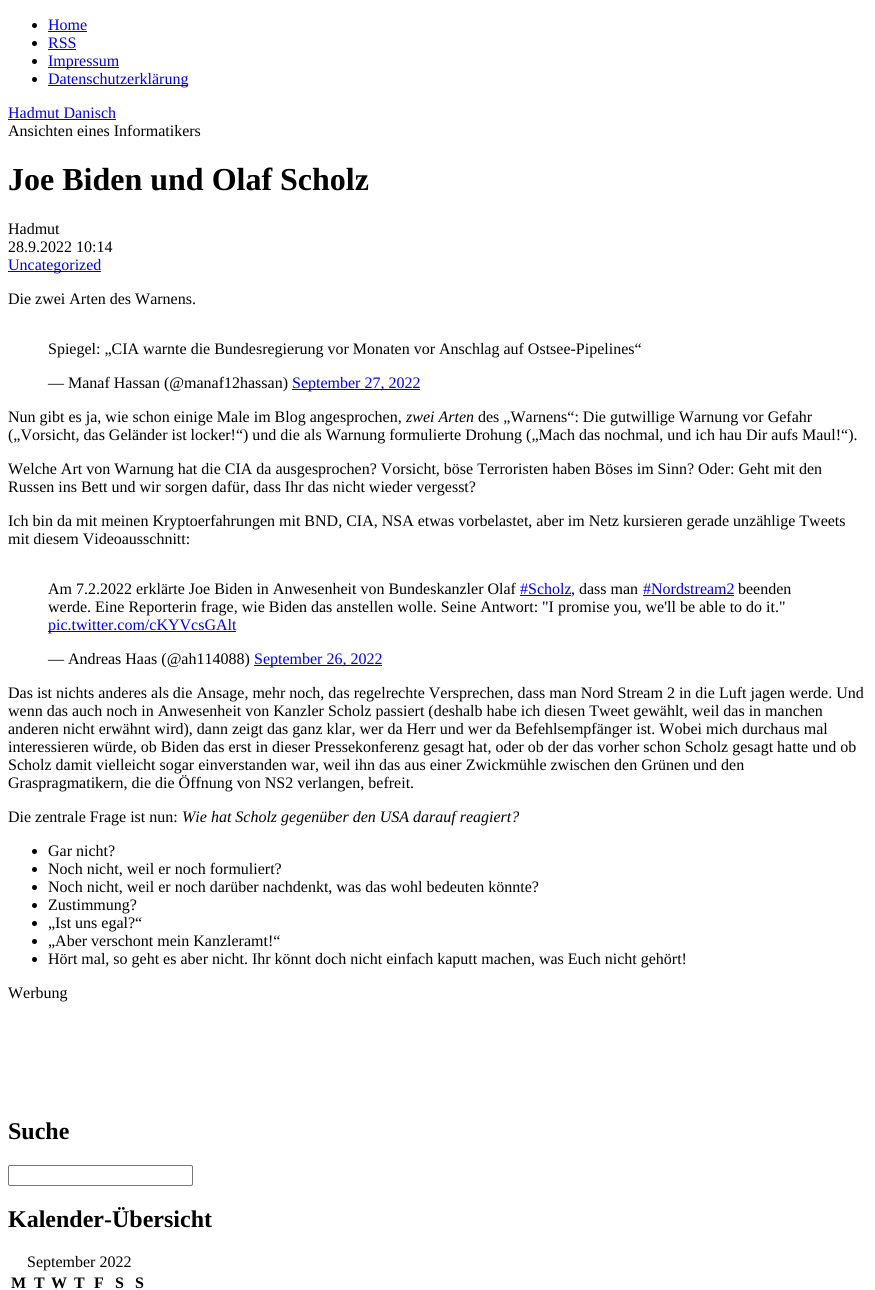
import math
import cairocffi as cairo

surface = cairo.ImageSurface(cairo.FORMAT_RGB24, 875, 1290)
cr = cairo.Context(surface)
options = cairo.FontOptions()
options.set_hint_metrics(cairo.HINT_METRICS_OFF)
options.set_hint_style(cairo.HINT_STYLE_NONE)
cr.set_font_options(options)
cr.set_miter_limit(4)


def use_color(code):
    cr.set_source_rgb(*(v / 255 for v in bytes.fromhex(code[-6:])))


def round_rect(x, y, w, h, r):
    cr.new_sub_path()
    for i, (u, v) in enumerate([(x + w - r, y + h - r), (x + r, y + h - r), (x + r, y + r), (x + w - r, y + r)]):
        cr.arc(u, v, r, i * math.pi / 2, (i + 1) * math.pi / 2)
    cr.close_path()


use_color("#ffffff")
cr.paint()
use_color("#000000")
cr.arc(34.5, 25.5, 2.5, 0, 2 * math.pi)
cr.fill()
cr.select_font_face("Liberation Serif")
cr.set_font_size(16)
use_color("#0000ee")
cr.move_to(48, 30)
cr.show_text("Home")
cr.rectangle(48, 31, 39, 1)
cr.fill()
use_color("#000000")
cr.arc(34.5, 43.5, 2.5, 0, 2 * math.pi)
cr.fill()
use_color("#0000ee")
cr.move_to(48, 48)
cr.show_text("RSS")
cr.rectangle(48, 49, 28, 1)
cr.fill()
use_color("#000000")
cr.arc(34.5, 61.5, 2.5, 0, 2 * math.pi)
cr.fill()
use_color("#0000ee")
cr.rectangle(48, 67, 71, 1)
cr.fill()
cr.move_to(48, 66)
cr.show_text("Impressum")
use_color("#000000")
cr.new_path()
cr.arc(34.5, 79.5, 2.5, 0, 2 * math.pi)
cr.fill()
use_color("#0000ee")
cr.rectangle(48, 85, 140, 1)
cr.fill()
cr.move_to(48, 84)
cr.show_text("Datenschutzerklärung")
cr.move_to(8, 118)
cr.show_text("Hadmut Danisch")
cr.rectangle(8, 119, 108, 1)
cr.fill()
use_color("#000000")
cr.move_to(8, 136)
cr.show_text("Ansichten eines Informatikers")
cr.select_font_face("Liberation Serif", cairo.FONT_SLANT_NORMAL, cairo.FONT_WEIGHT_BOLD)
cr.set_font_size(32)
cr.move_to(8, 190)
cr.show_text("Joe Biden und Olaf Scholz")
cr.select_font_face("Liberation Serif")
cr.set_font_size(16)
cr.move_to(8, 234)
cr.show_text("Hadmut")
cr.move_to(8, 252)
cr.show_text("28.9.2022 10:14")
use_color("#0000ee")
cr.rectangle(8, 271, 93, 1)
cr.fill()
cr.move_to(8, 270)
cr.show_text("Uncategorized")
use_color("#000000")
cr.move_to(8, 304)
cr.show_text("Die zwei Arten des Warnens.")
cr.move_to(48, 354)
cr.show_text("Spiegel: „CIA warnte die Bundesregierung vor Monaten vor Anschlag auf Ostsee-Pipelines“")
cr.move_to(48, 388)
cr.show_text("— Manaf Hassan (@manaf12hassan)")
use_color("#0000ee")
cr.rectangle(292, 389, 128, 1)
cr.fill()
cr.move_to(292, 388)
cr.show_text("September 27, 2022")
use_color("#000000")
cr.move_to(8, 422)
cr.show_text("Nun gibt es ja, wie schon einige Male im Blog angesprochen,")
cr.select_font_face("Liberation Serif", cairo.FONT_SLANT_ITALIC)
cr.move_to(406, 422)
cr.show_text("zwei Arten")
cr.select_font_face("Liberation Serif")
cr.move_to(478, 422)
cr.show_text("des „Warnens“: Die gutwillige Warnung vor Gefahr")
cr.move_to(8, 440)
cr.show_text("(„Vorsicht, das Geländer ist locker!“) und die als Warnung formulierte Drohung („Mach das nochmal, und ich hau Dir aufs Maul!“).")
cr.move_to(8, 474)
cr.show_text("Welche Art von Warnung hat die CIA da ausgesprochen? Vorsicht, böse Terroristen haben Böses im Sinn? Oder: Geht mit den")
cr.move_to(8, 492)
cr.show_text("Russen ins Bett und wir sorgen dafür, dass Ihr das nicht wieder vergesst?")
cr.move_to(8, 526)
cr.show_text("Ich bin da mit meinen Kryptoerfahrungen mit BND, CIA, NSA etwas vorbelastet, aber im Netz kursieren gerade unzählige Tweets")
cr.move_to(8, 544)
cr.show_text("mit diesem Videoausschnitt:")
cr.move_to(48, 594)
cr.show_text("Am 7.2.2022 erklärte Joe Biden in Anwesenheit von Bundeskanzler Olaf")
use_color("#0000ee")
cr.move_to(520, 594)
cr.show_text("#Scholz")
cr.rectangle(520, 595, 51, 1)
cr.fill()
use_color("#000000")
cr.move_to(571, 594)
cr.show_text(", dass man")
use_color("#0000ee")
cr.move_to(643, 594)
cr.show_text("#Nordstream2")
cr.rectangle(643, 595, 91, 1)
cr.fill()
use_color("#000000")
cr.move_to(738, 594)
cr.show_text("beenden")
cr.move_to(48, 612)
cr.show_text("werde. Eine Reporterin frage, wie Biden das anstellen wolle. Seine Antwort: \"I promise you, we'll be able to do it.\"")
use_color("#0000ee")
cr.rectangle(48, 631, 188, 1)
cr.fill()
cr.move_to(48, 630)
cr.show_text("pic.twitter.com/cKYVcsGAlt")
use_color("#000000")
cr.move_to(48, 664)
cr.show_text("— Andreas Haas (@ah114088)")
use_color("#0000ee")
cr.rectangle(254, 665, 128, 1)
cr.fill()
cr.move_to(254, 664)
cr.show_text("September 26, 2022")
use_color("#000000")
cr.move_to(8, 698)
cr.show_text("Das ist nichts anderes als die Ansage, mehr noch, das regelrechte Versprechen, dass man Nord Stream 2 in die Luft jagen werde. Und")
cr.move_to(8, 716)
cr.show_text("wenn das auch noch in Anwesenheit von Kanzler Scholz passiert (deshalb habe ich diesen Tweet gewählt, weil das in manchen")
cr.move_to(8, 734)
cr.show_text("anderen nicht erwähnt wird), dann zeigt das ganz klar, wer da Herr und wer da Befehlsempfänger ist. Wobei mich durchaus mal")
cr.move_to(8, 752)
cr.show_text("interessieren würde, ob Biden das erst in dieser Pressekonferenz gesagt hat, oder ob der das vorher schon Scholz gesagt hatte und ob")
cr.move_to(8, 770)
cr.show_text("Scholz damit vielleicht sogar einverstanden war, weil ihn das aus einer Zwickmühle zwischen den Grünen und den")
cr.move_to(8, 788)
cr.show_text("Graspragmatikern, die die Öffnung von NS2 verlangen, befreit.")
cr.move_to(8, 822)
cr.show_text("Die zentrale Frage ist nun:")
cr.select_font_face("Liberation Serif", cairo.FONT_SLANT_ITALIC)
cr.move_to(182, 822)
cr.show_text("Wie hat Scholz gegenüber den USA darauf reagiert?")
cr.new_path()
cr.arc(34.5, 851.5, 2.5, 0, 2 * math.pi)
cr.fill()
cr.select_font_face("Liberation Serif")
cr.move_to(48, 856)
cr.show_text("Gar nicht?")
cr.new_path()
cr.arc(34.5, 869.5, 2.5, 0, 2 * math.pi)
cr.fill()
cr.move_to(48, 874)
cr.show_text("Noch nicht, weil er noch formuliert?")
cr.new_path()
cr.arc(34.5, 887.5, 2.5, 0, 2 * math.pi)
cr.fill()
cr.move_to(48, 892)
cr.show_text("Noch nicht, weil er noch darüber nachdenkt, was das wohl bedeuten könnte?")
cr.new_path()
cr.arc(34.5, 905.5, 2.5, 0, 2 * math.pi)
cr.fill()
cr.move_to(48, 910)
cr.show_text("Zustimmung?")
cr.new_path()
cr.arc(34.5, 923.5, 2.5, 0, 2 * math.pi)
cr.fill()
cr.move_to(48, 928)
cr.show_text("„Ist uns egal?“")
cr.new_path()
cr.arc(34.5, 941.5, 2.5, 0, 2 * math.pi)
cr.fill()
cr.move_to(48, 946)
cr.show_text("„Aber verschont mein Kanzleramt!“")
cr.new_path()
cr.arc(34.5, 959.5, 2.5, 0, 2 * math.pi)
cr.fill()
cr.move_to(48, 964)
cr.show_text("Hört mal, so geht es aber nicht. Ihr könnt doch nicht einfach kaputt machen, was Euch nicht gehört!")
cr.move_to(8, 998)
cr.show_text("Werbung")
cr.select_font_face("Liberation Serif", cairo.FONT_SLANT_NORMAL, cairo.FONT_WEIGHT_BOLD)
cr.set_font_size(24)
cr.move_to(8, 1139)
cr.show_text("Suche")
round_rect(8.5, 1165.5, 184, 20, 1.5)
use_color("#767676")
cr.set_line_width(1)
cr.stroke()
use_color("#000000")
cr.move_to(8, 1227)
cr.show_text("Kalender-Übersicht")
cr.select_font_face("Liberation Serif")
cr.set_font_size(16)
cr.move_to(27, 1267)
cr.show_text("September 2022")
cr.select_font_face("Liberation Serif", cairo.FONT_SLANT_NORMAL, cairo.FONT_WEIGHT_BOLD)
cr.move_to(11, 1288)
cr.show_text("M")
cr.move_to(34, 1288)
cr.show_text("T")
cr.move_to(51, 1288)
cr.show_text("W")
cr.move_to(74, 1288)
cr.show_text("T")
cr.move_to(94, 1288)
cr.show_text("F")
cr.move_to(115, 1288)
cr.show_text("S")
cr.move_to(135, 1288)
cr.show_text("S")
surface.write_to_png("result.png")
